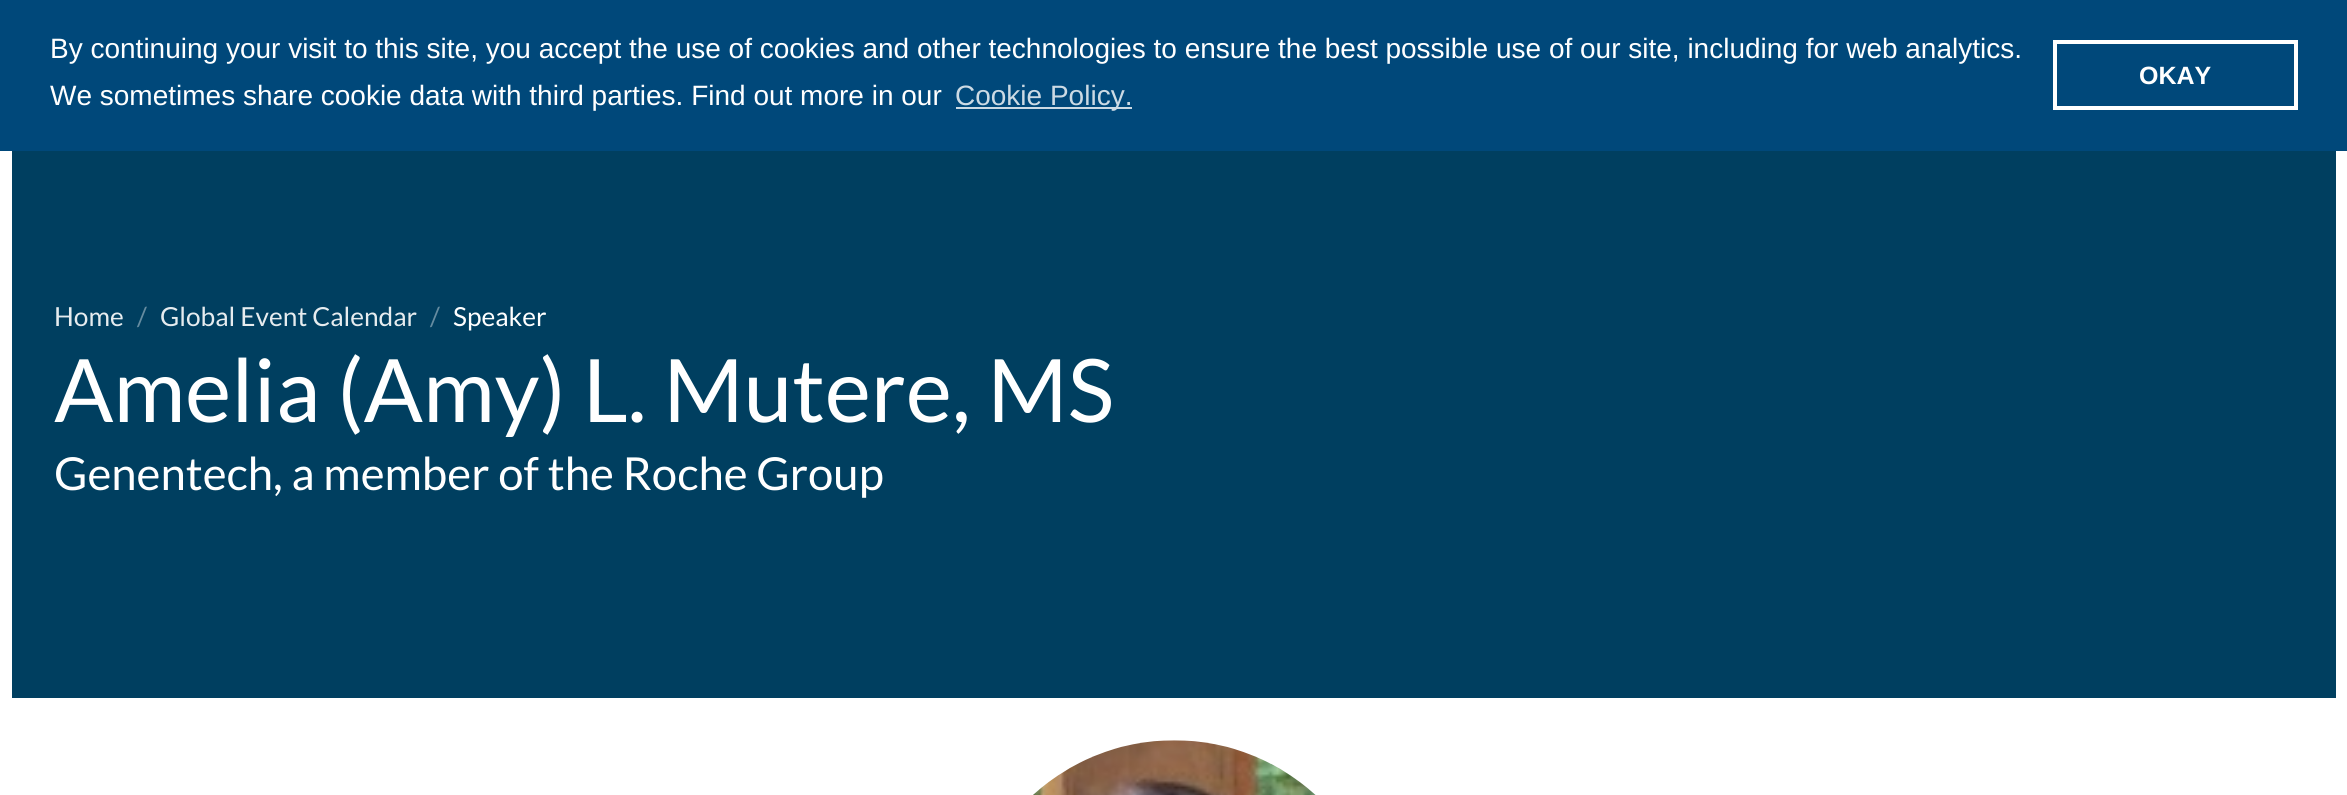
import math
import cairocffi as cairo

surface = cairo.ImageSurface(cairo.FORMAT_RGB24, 2347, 795)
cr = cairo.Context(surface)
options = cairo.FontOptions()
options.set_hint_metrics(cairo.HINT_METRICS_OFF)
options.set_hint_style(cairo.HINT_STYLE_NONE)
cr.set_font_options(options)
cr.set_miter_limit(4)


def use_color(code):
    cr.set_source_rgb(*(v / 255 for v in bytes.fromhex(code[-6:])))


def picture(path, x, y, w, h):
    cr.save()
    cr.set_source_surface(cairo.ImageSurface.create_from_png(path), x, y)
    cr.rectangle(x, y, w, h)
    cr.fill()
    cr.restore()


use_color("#ffffff")
cr.paint()
use_color("#00487a")
cr.rectangle(0, 0, 2347, 151)
cr.fill()
cr.select_font_face("Liberation Sans")
cr.set_font_size(28)
use_color("#ffffff")
cr.move_to(50, 58)
cr.show_text("By continuing your visit to this site, you accept the use of cookies and other technologies to ensure the best possible use of our site, including for web analytics.")
cr.move_to(50, 105)
cr.show_text("We sometimes share cookie data with third parties. Find out more in our")
use_color("#ccdae4")
cr.rectangle(956, 107, 176, 2)
cr.fill()
cr.move_to(955, 105)
cr.show_text("Cookie Policy.")
cr.rectangle(2055, 42, 241, 66)
use_color("#ffffff")
cr.set_line_width(4)
cr.stroke()
cr.select_font_face("Liberation Sans", cairo.FONT_SLANT_NORMAL, cairo.FONT_WEIGHT_BOLD)
cr.set_font_size(25)
cr.move_to(2139, 84)
cr.show_text("OKAY")
use_color("#003f60")
cr.rectangle(12, 151, 2324, 547)
cr.fill()
cr.select_font_face("Lato")
cr.set_font_size(26.25)
use_color("#e6ecef")
cr.move_to(54, 326)
cr.show_text("Home")
use_color("#668ca0")
cr.move_to(137, 326)
cr.show_text("/")
use_color("#e6ecef")
cr.move_to(160, 326)
cr.show_text("Global Event Calendar")
use_color("#668ca0")
cr.move_to(430, 326)
cr.show_text("/")
use_color("#ffffff")
cr.move_to(453, 326)
cr.show_text("Speaker")
cr.set_font_size(87.5)
cr.move_to(54, 422)
cr.show_text("Amelia (Amy) L. Mutere, MS")
cr.set_font_size(45.5)
cr.move_to(54, 490)
cr.show_text("Genentech, a member of the Roche Group")
picture("img1.png", 1033, 740, 283, 55)
surface.write_to_png("result.png")
